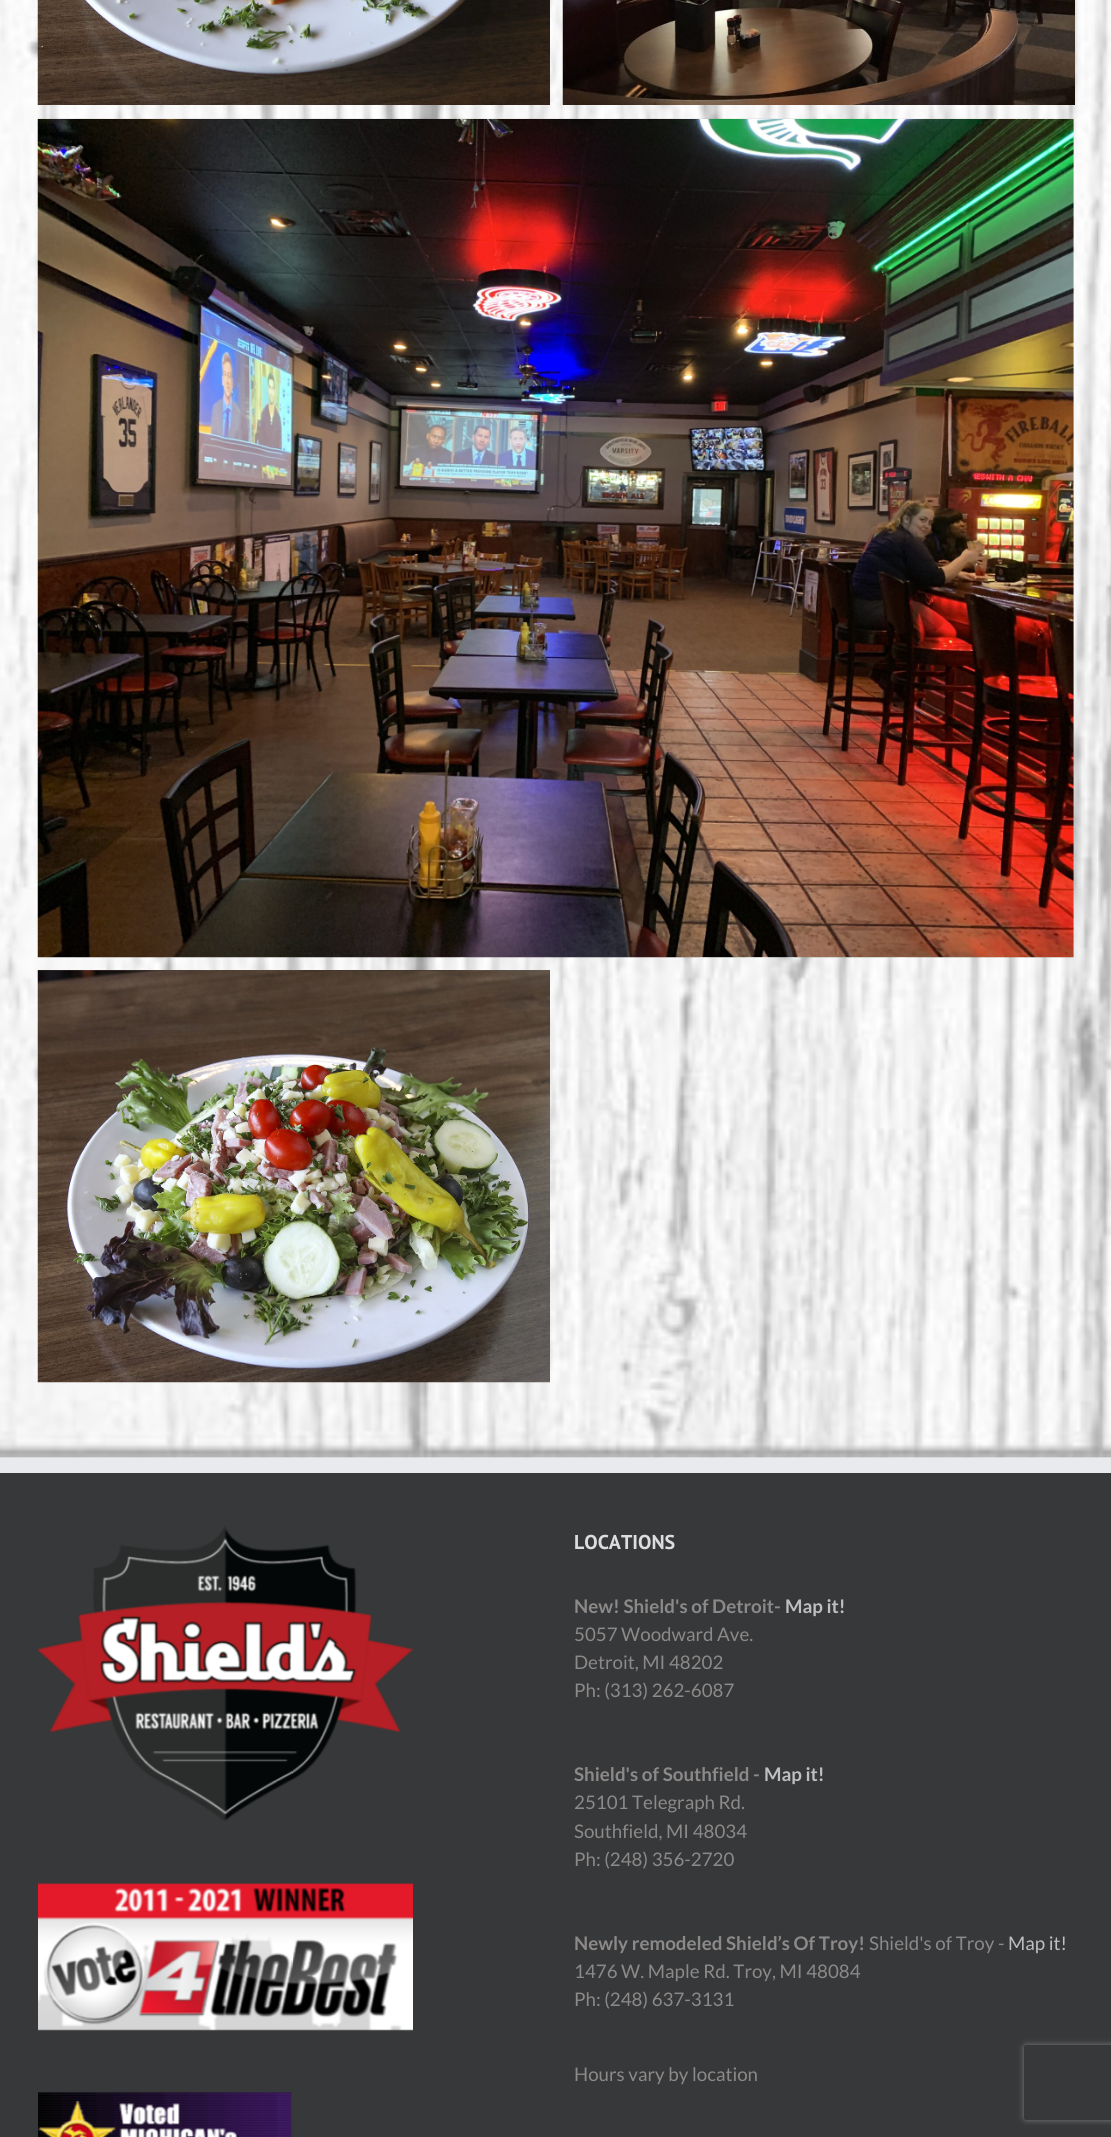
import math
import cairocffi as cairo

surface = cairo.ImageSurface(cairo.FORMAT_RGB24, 1111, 2137)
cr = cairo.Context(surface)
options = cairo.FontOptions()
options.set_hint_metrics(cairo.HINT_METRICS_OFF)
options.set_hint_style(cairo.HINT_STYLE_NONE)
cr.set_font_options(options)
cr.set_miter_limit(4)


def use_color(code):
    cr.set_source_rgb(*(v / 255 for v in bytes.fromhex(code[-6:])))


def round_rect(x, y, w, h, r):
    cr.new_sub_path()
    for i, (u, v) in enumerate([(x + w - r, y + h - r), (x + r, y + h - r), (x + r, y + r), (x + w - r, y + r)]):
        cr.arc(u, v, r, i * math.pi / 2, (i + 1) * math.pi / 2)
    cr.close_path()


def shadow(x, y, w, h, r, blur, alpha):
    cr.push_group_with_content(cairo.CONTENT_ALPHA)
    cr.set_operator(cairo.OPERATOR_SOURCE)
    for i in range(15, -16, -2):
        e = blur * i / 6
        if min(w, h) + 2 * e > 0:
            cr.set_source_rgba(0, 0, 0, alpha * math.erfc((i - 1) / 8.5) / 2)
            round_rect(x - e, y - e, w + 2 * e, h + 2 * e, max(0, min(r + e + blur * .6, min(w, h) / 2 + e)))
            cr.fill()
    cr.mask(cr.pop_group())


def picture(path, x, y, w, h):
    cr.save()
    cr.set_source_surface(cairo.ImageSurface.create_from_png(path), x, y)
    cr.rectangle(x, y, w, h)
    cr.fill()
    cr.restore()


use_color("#ffffff")
cr.paint()
picture("img1.png", 0, 0, 1111, 1458)
picture("img2.png", 37, 0, 513, 105)
picture("img3.png", 562, 0, 513, 105)
picture("img4.png", 37, 118, 1037, 840)
picture("img5.png", 37, 970, 513, 413)
use_color("#363839")
cr.rectangle(0, 1473, 1111, 664)
cr.fill()
use_color("#e9eaee")
cr.rectangle(0, 1458, 1111, 15)
cr.fill()
picture("img6.png", 38, 1526, 375, 295)
picture("img7.png", 38, 1883, 375, 148)
picture("img8.png", 38, 2092, 254, 45)
cr.select_font_face("PT Sans", cairo.FONT_SLANT_NORMAL, cairo.FONT_WEIGHT_BOLD)
cr.set_font_size(20)
use_color("#dddddd")
cr.move_to(574, 1549)
cr.show_text("LOCATIONS")
cr.select_font_face("Lato", cairo.FONT_SLANT_NORMAL, cairo.FONT_WEIGHT_BOLD)
cr.set_font_size(18.75)
use_color("#8c8989")
cr.move_to(574, 1613)
cr.show_text("New! Shield's of Detroit-")
use_color("#bfbfbf")
cr.move_to(785, 1613)
cr.show_text("Map it!")
cr.select_font_face("Lato")
use_color("#8c8989")
cr.move_to(574, 1641)
cr.show_text("5057 Woodward Ave.")
cr.move_to(574, 1669)
cr.show_text("Detroit, MI 48202")
cr.move_to(574, 1697)
cr.show_text("Ph: (313) 262-6087")
cr.select_font_face("Lato", cairo.FONT_SLANT_NORMAL, cairo.FONT_WEIGHT_BOLD)
cr.move_to(574, 1781)
cr.show_text("Shield's of Southfield -")
use_color("#bfbfbf")
cr.move_to(764, 1781)
cr.show_text("Map it!")
cr.select_font_face("Lato")
use_color("#8c8989")
cr.move_to(574, 1809)
cr.show_text("25101 Telegraph Rd.")
cr.move_to(574, 1838)
cr.show_text("Southfield, MI 48034")
cr.move_to(574, 1866)
cr.show_text("Ph: (248) 356-2720")
cr.select_font_face("Lato", cairo.FONT_SLANT_NORMAL, cairo.FONT_WEIGHT_BOLD)
cr.move_to(574, 1950)
cr.show_text("Newly remodeled Shield’s Of Troy!")
cr.select_font_face("Lato")
cr.move_to(869, 1950)
cr.show_text("Shield's of Troy -")
use_color("#bfbfbf")
cr.move_to(1008, 1950)
cr.show_text("Map it!")
use_color("#8c8989")
cr.move_to(574, 1978)
cr.show_text("1476 W. Maple Rd. Troy, MI 48084")
cr.move_to(574, 2006)
cr.show_text("Ph: (248) 637-3131")
cr.move_to(574, 2081)
cr.show_text("Hours vary by location")
cr.save()
cr.set_fill_rule(cairo.FILL_RULE_EVEN_ODD)
cr.new_path()
cr.move_to(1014, 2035)
cr.line_to(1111, 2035)
cr.line_to(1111, 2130)
cr.line_to(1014, 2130)
cr.close_path()
cr.move_to(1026.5, 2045)
cr.line_to(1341.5, 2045)
cr.curve_to(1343, 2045, 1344, 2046, 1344, 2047.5)
cr.line_to(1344, 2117.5)
cr.curve_to(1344, 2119, 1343, 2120, 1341.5, 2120)
cr.line_to(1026.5, 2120)
cr.curve_to(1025, 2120, 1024, 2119, 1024, 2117.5)
cr.line_to(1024, 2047.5)
cr.curve_to(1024, 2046, 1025, 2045, 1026.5, 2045)
cr.close_path()
cr.clip()
use_color("#808080")
shadow(1024, 2045, 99, 75, 2.5, 3, 1)
cr.restore()
surface.write_to_png("result.png")
